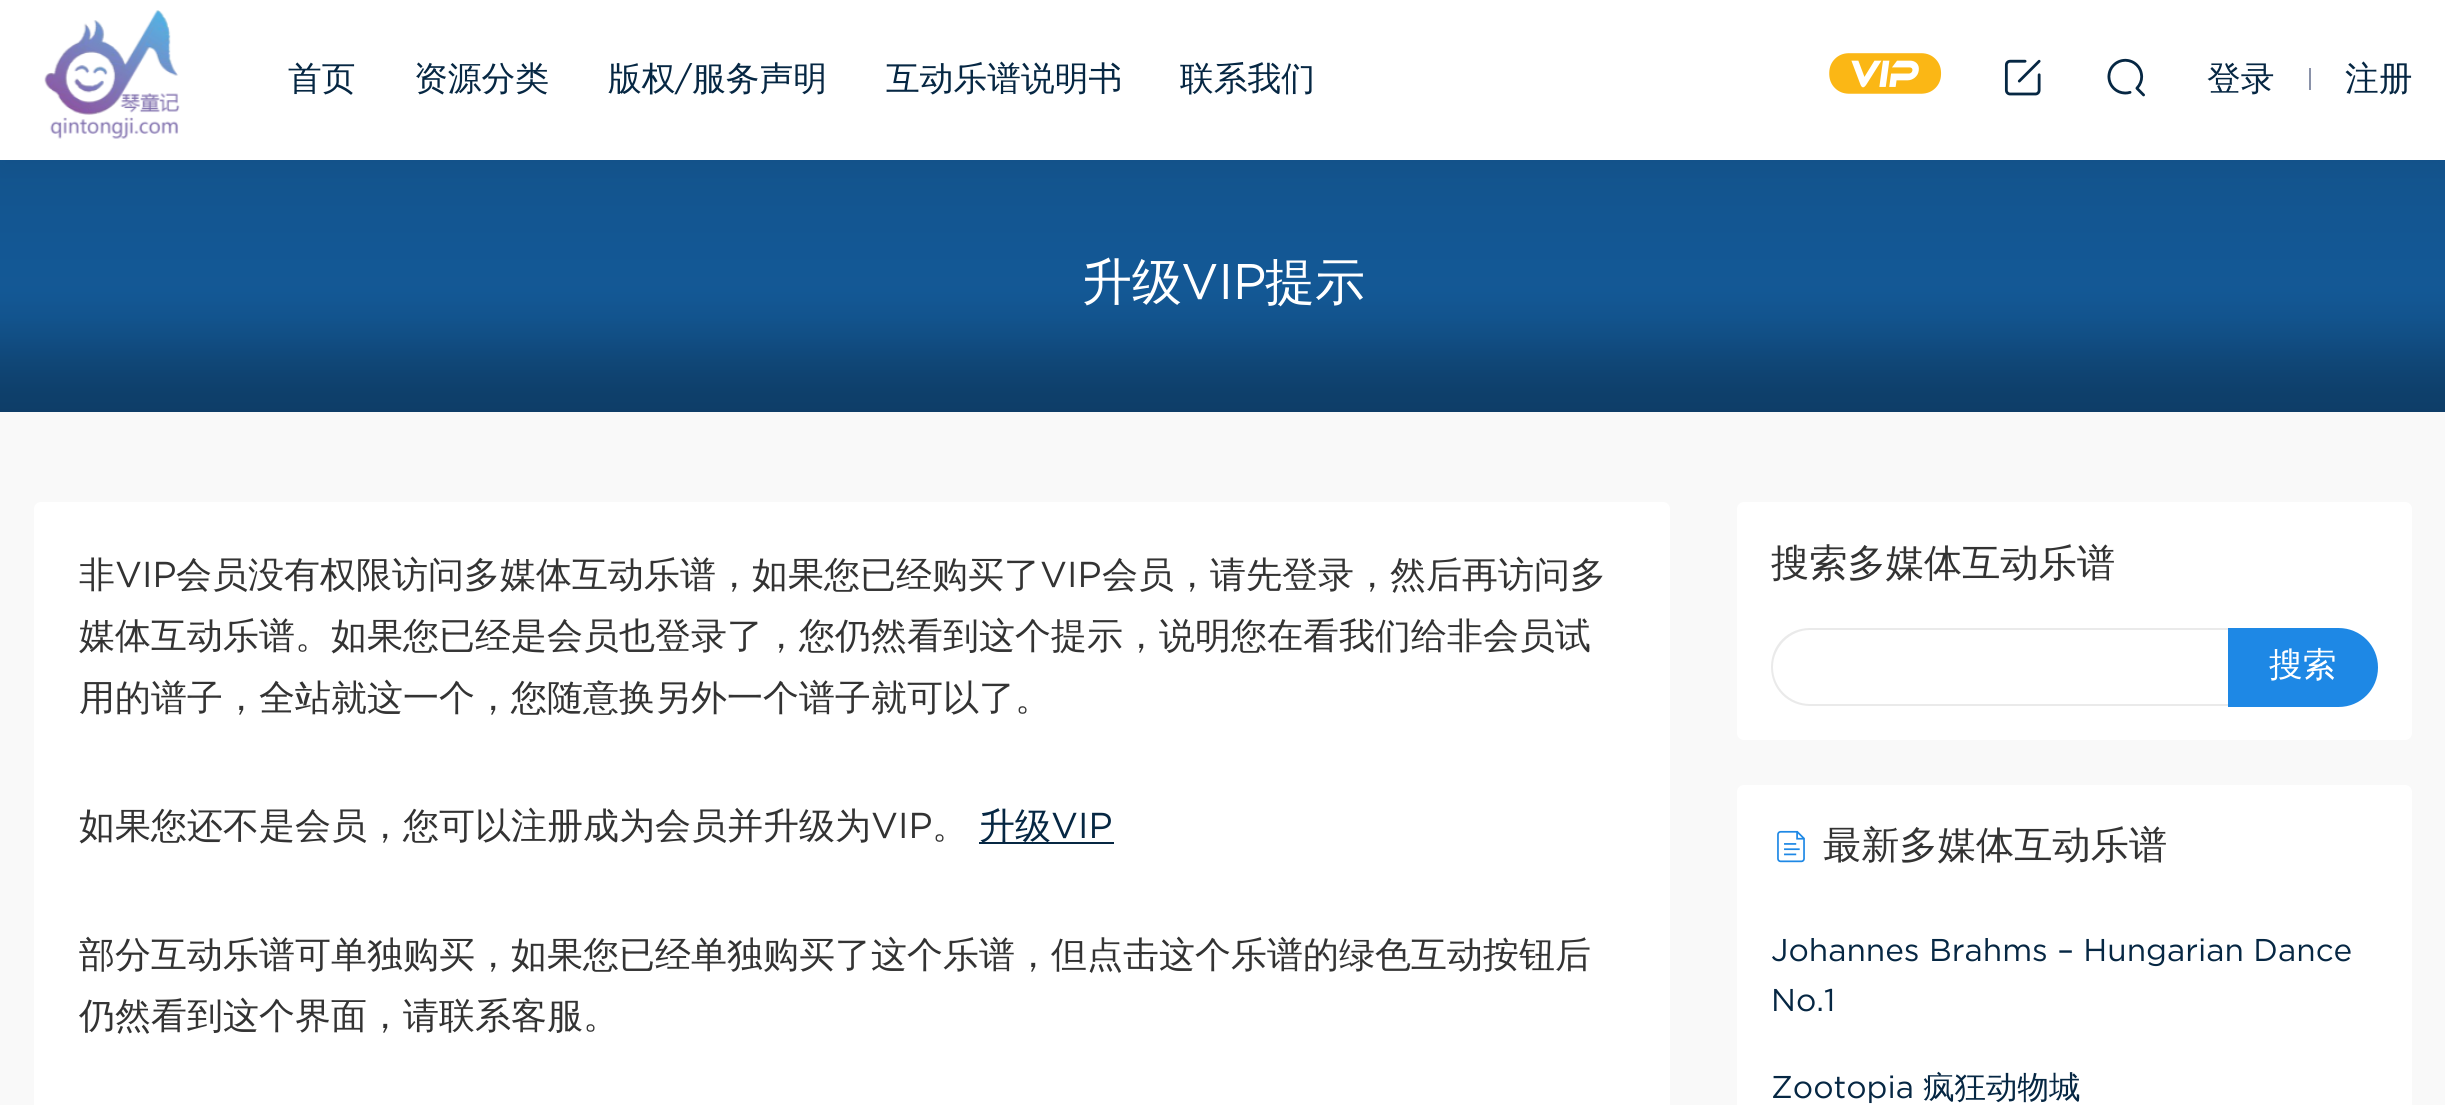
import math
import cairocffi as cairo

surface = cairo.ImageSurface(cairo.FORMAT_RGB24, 2445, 1105)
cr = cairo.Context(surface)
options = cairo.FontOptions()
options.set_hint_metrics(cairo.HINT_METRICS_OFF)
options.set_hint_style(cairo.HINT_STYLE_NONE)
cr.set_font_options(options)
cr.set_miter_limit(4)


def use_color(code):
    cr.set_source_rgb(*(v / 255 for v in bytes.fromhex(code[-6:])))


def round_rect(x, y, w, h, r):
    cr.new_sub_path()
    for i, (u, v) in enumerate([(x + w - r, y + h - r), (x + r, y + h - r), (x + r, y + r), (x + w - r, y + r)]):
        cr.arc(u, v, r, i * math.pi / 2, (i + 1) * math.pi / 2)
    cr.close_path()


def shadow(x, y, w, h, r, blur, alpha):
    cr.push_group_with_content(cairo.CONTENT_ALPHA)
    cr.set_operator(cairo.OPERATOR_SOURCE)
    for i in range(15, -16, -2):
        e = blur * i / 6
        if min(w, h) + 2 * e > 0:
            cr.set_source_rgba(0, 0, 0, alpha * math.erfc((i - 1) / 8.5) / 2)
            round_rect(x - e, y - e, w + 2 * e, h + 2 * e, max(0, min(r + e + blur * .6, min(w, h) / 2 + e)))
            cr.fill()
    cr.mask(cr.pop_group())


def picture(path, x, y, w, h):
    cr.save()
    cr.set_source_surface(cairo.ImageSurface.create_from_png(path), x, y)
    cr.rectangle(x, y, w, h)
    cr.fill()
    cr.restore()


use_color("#f9f9f9")
cr.paint()
gradient = cairo.LinearGradient(1223, 157, 1223, 412)
gradient.add_color_stop_rgba(0, 0.075, 0.329, 0.557, 1)
gradient.add_color_stop_rgba(0.07, 0.075, 0.329, 0.557, 1)
gradient.add_color_stop_rgba(0.1, 0.075, 0.333, 0.561, 1)
gradient.add_color_stop_rgba(0.14, 0.075, 0.333, 0.561, 1)
gradient.add_color_stop_rgba(0.17, 0.075, 0.333, 0.565, 1)
gradient.add_color_stop_rgba(0.21, 0.075, 0.337, 0.569, 1)
gradient.add_color_stop_rgba(0.24, 0.075, 0.337, 0.573, 1)
gradient.add_color_stop_rgba(0.28, 0.075, 0.337, 0.573, 1)
gradient.add_color_stop_rgba(0.31, 0.075, 0.341, 0.576, 1)
gradient.add_color_stop_rgba(0.35, 0.075, 0.341, 0.58, 1)
gradient.add_color_stop_rgba(0.38, 0.075, 0.341, 0.58, 1)
gradient.add_color_stop_rgba(0.42, 0.075, 0.345, 0.584, 1)
gradient.add_color_stop_rgba(0.45, 0.075, 0.345, 0.584, 1)
gradient.add_color_stop_rgba(0.49, 0.078, 0.345, 0.584, 1)
gradient.add_color_stop_rgba(0.52, 0.075, 0.345, 0.584, 1)
gradient.add_color_stop_rgba(0.56, 0.075, 0.341, 0.576, 1)
gradient.add_color_stop_rgba(0.59, 0.075, 0.333, 0.565, 1)
gradient.add_color_stop_rgba(0.63, 0.071, 0.329, 0.557, 1)
gradient.add_color_stop_rgba(0.66, 0.071, 0.318, 0.537, 1)
gradient.add_color_stop_rgba(0.7, 0.067, 0.31, 0.522, 1)
gradient.add_color_stop_rgba(0.73, 0.067, 0.298, 0.506, 1)
gradient.add_color_stop_rgba(0.77, 0.063, 0.286, 0.486, 1)
gradient.add_color_stop_rgba(0.8, 0.063, 0.278, 0.467, 1)
gradient.add_color_stop_rgba(0.84, 0.059, 0.267, 0.451, 1)
gradient.add_color_stop_rgba(0.87, 0.059, 0.259, 0.439, 1)
gradient.add_color_stop_rgba(0.91, 0.055, 0.251, 0.424, 1)
gradient.add_color_stop_rgba(0.94, 0.055, 0.247, 0.416, 1)
gradient.add_color_stop_rgba(0.98, 0.055, 0.243, 0.412, 1)
gradient.add_color_stop_rgba(1, 0.055, 0.239, 0.404, 1)
cr.set_source(gradient)
cr.rectangle(0, 160, 2445, 252)
cr.fill()
use_color("#113a5d")
shadow(0, 9, 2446, 160, 0, 11, 0.1)
use_color("#ffffff")
cr.rectangle(0, 0, 2445, 160)
cr.fill()
picture("img1.png", 44, 10, 136, 129)
cr.select_font_face("WenQuanYi Zen Hei Medium")
cr.set_font_size(33.75)
use_color("#062743")
cr.move_to(288, 90)
cr.show_text("首页")
cr.move_to(414, 90)
cr.show_text("资源分类")
cr.move_to(608, 90)
cr.show_text("版权")
cr.select_font_face("Gotham")
cr.move_to(675, 90)
cr.show_text("/")
cr.select_font_face("WenQuanYi Zen Hei Medium")
cr.move_to(692, 90)
cr.show_text("服务声明")
cr.move_to(886, 90)
cr.show_text("互动乐谱说明书")
cr.move_to(1180, 90)
cr.show_text("联系我们")
picture("img2.png", 1829, 53, 113, 41)
picture("img3.png", 2004, 59, 37, 37)
picture("img4.png", 2107, 58, 38, 39)
cr.move_to(2207, 90)
cr.show_text("登录")
use_color("#8a92a9")
cr.rectangle(2309, 68, 2, 22)
cr.fill()
use_color("#062743")
cr.move_to(2345, 90)
cr.show_text("注册")
cr.set_font_size(50)
use_color("#ffffff")
cr.move_to(1082, 299)
cr.show_text("升级")
cr.select_font_face("Gotham")
cr.move_to(1181, 299)
cr.show_text("VIP")
cr.select_font_face("WenQuanYi Zen Hei Medium")
cr.move_to(1265, 299)
cr.show_text("提示")
round_rect(34, 502, 1636, 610, 7)
cr.fill()
cr.set_font_size(36)
use_color("#333333")
cr.move_to(79, 587)
cr.show_text("非")
cr.select_font_face("Gotham")
cr.move_to(115, 587)
cr.show_text("VIP")
cr.select_font_face("WenQuanYi Zen Hei Medium")
cr.move_to(176, 587)
cr.show_text("会员没有权限访问多媒体互动乐谱，如果您已经购买了")
cr.select_font_face("Gotham")
cr.move_to(1040, 587)
cr.show_text("VIP")
cr.select_font_face("WenQuanYi Zen Hei Medium")
cr.move_to(1102, 587)
cr.show_text("会员，请先登录，然后再访问多")
cr.move_to(79, 648)
cr.show_text("媒体互动乐谱。如果您已经是会员也登录了，您仍然看到这个提示，说明您在看我们给非会员试")
cr.move_to(79, 710)
cr.show_text("用的谱子，全站就这一个，您随意换另外一个谱子就可以了。")
cr.move_to(79, 838)
cr.show_text("如果您还不是会员，您可以注册成为会员并升级为")
cr.select_font_face("Gotham")
cr.move_to(871, 838)
cr.show_text("VIP")
cr.select_font_face("WenQuanYi Zen Hei Medium")
cr.move_to(932, 838)
cr.show_text("。")
use_color("#062743")
cr.rectangle(979, 842, 135, 2)
cr.fill()
cr.move_to(979, 838)
cr.show_text("升级")
cr.select_font_face("Gotham")
cr.move_to(1051, 838)
cr.show_text("VIP")
cr.select_font_face("WenQuanYi Zen Hei Medium")
use_color("#333333")
cr.move_to(79, 967)
cr.show_text("部分互动乐谱可单独购买，如果您已经单独购买了这个乐谱，但点击这个乐谱的绿色互动按钮后")
cr.move_to(79, 1028)
cr.show_text("仍然看到这个界面，请联系客服。")
use_color("#ffffff")
round_rect(1737, 502, 675, 238, 7)
cr.fill()
cr.set_font_size(38.25)
use_color("#333333")
cr.move_to(1771, 576)
cr.show_text("搜索多媒体互动乐谱")
use_color("#eaeaea")
cr.set_fill_rule(cairo.FILL_RULE_EVEN_ODD)
cr.new_path()
cr.move_to(1810, 628)
cr.line_to(2228, 628)
cr.line_to(2228, 706)
cr.line_to(1810, 706)
cr.curve_to(1788, 706, 1771, 689, 1771, 667)
cr.curve_to(1771, 645, 1788, 628, 1810, 628)
cr.close_path()
cr.move_to(1810, 630)
cr.line_to(2228, 630)
cr.line_to(2228, 704)
cr.line_to(1810, 704)
cr.curve_to(1790, 704, 1773, 688, 1773, 667)
cr.curve_to(1773, 647, 1790, 630, 1810, 630)
cr.close_path()
cr.fill()
use_color("#1e88e5")
cr.new_path()
cr.move_to(2228, 628)
cr.line_to(2338.5, 628)
cr.curve_to(2360.5, 628, 2378, 645.5, 2378, 667.5)
cr.curve_to(2378, 689.5, 2360.5, 707, 2338.5, 707)
cr.line_to(2228, 707)
cr.close_path()
cr.fill()
cr.set_font_size(33.75)
use_color("#ffffff")
cr.move_to(2269, 676)
cr.show_text("搜索")
round_rect(1737, 785, 675, 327, 7)
cr.fill()
picture("img5.png", 1777, 830, 28, 33)
cr.set_font_size(38.25)
use_color("#333333")
cr.move_to(1823, 858)
cr.show_text("最新多媒体互动乐谱")
cr.select_font_face("Gotham")
cr.set_font_size(31.5)
use_color("#062743")
cr.move_to(1771, 961)
cr.show_text("Johannes Brahms – Hungarian Dance")
cr.move_to(1771, 1011)
cr.show_text("No.1")
cr.move_to(1771, 1098)
cr.show_text("Zootopia")
cr.select_font_face("WenQuanYi Zen Hei Medium")
cr.move_to(1923, 1098)
cr.show_text("疯狂动物城")
surface.write_to_png("result.png")
